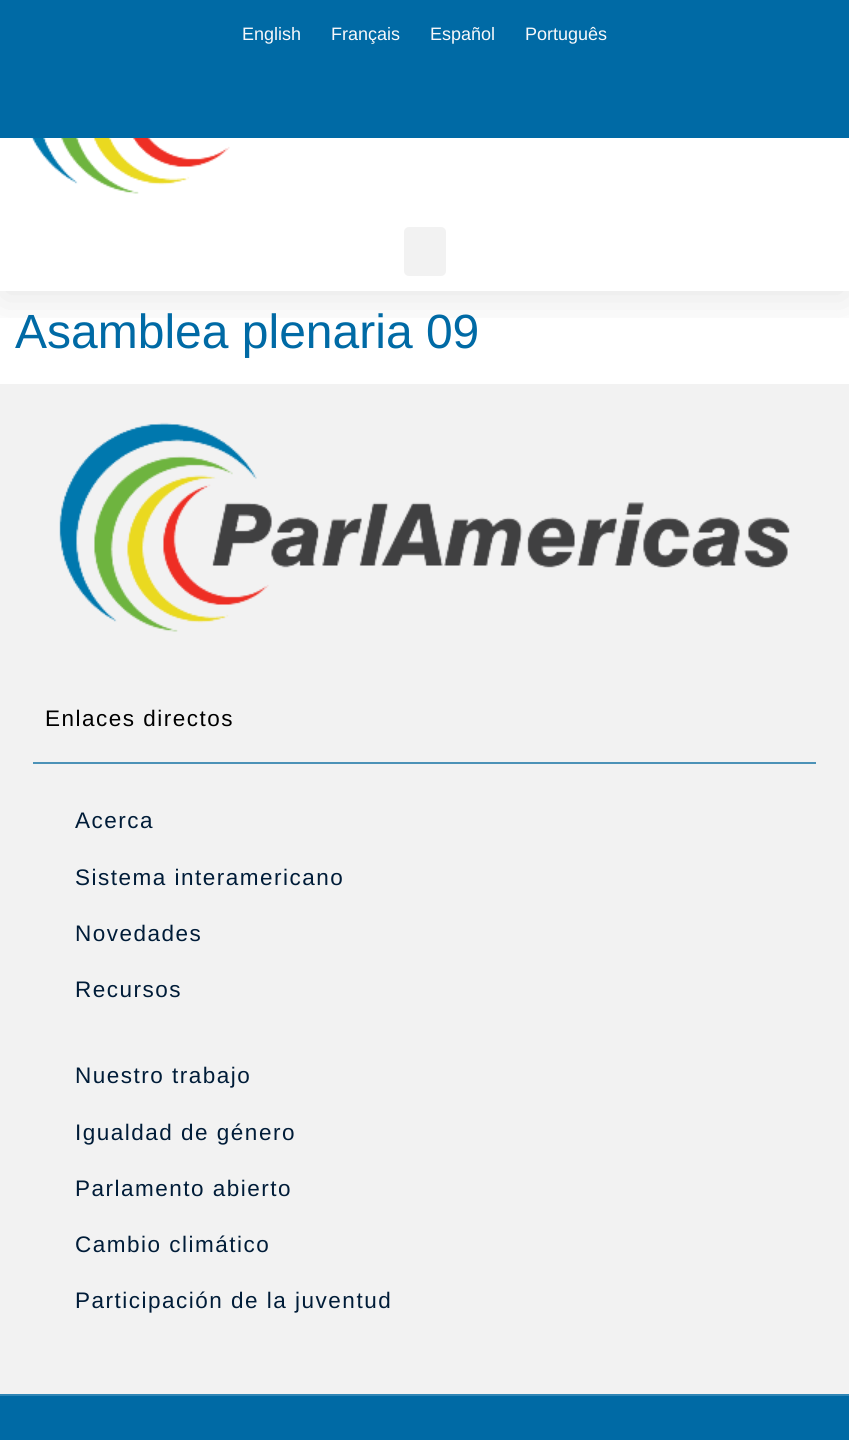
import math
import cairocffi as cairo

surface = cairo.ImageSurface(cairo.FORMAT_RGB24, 849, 1440)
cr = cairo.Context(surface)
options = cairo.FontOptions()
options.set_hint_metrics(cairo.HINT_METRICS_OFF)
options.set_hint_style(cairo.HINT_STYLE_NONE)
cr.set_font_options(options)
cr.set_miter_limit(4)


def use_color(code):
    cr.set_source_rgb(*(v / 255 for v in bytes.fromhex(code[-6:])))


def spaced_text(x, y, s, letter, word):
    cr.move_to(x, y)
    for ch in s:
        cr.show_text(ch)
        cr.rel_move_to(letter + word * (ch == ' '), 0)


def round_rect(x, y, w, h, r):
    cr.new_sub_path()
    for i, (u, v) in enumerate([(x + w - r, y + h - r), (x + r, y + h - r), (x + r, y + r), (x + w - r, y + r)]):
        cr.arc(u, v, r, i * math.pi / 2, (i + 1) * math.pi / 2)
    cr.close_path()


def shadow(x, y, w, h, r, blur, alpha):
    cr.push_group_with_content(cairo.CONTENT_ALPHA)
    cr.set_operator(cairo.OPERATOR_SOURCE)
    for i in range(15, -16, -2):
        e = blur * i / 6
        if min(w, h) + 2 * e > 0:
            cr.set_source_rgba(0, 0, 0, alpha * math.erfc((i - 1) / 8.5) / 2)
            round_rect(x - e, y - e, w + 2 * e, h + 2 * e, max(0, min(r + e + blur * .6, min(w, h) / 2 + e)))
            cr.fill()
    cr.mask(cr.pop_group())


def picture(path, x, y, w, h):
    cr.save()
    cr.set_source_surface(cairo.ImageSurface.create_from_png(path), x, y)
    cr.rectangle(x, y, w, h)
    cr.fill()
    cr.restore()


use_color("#ffffff")
cr.paint()
cr.save()
cr.rectangle(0, 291, 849, 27)
cr.clip()
use_color("#000000")
shadow(0, -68, 849, 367, 0, 22.5, 0.1)
cr.restore()
use_color("#006aa5")
cr.rectangle(0, 0, 849, 138)
cr.fill()
cr.select_font_face("Liberation Sans")
cr.set_font_size(18)
use_color("#f8f8fa")
cr.move_to(242, 40)
cr.show_text("English")
cr.move_to(331, 40)
cr.show_text("Français")
cr.move_to(430, 40)
cr.show_text("Español")
cr.move_to(525, 40)
cr.show_text("Português")
picture("img1.png", 31, 138, 199, 56)
use_color("#f2f2f2")
round_rect(404, 227, 42, 49, 5)
cr.fill()
cr.set_font_size(48)
use_color("#006aa5")
cr.move_to(15, 348)
cr.show_text("Asamblea plenaria 09")
use_color("#f2f2f2")
cr.rectangle(0, 384, 849, 1010)
cr.fill()
picture("img2.png", 59, 422, 731, 210)
cr.set_font_size(22.5)
use_color("#000000")
spaced_text(45, 726, "Enlaces directos", 1.5, 0)
use_color("#4c92b7")
cr.rectangle(33, 762, 783, 2)
cr.fill()
use_color("#001c38")
spaced_text(75, 828, "Acerca", 1.5, 0)
spaced_text(75, 885, "Sistema interamericano", 1.5, 0)
spaced_text(75, 941, "Novedades", 1.5, 0)
spaced_text(75, 997, "Recursos", 1.5, 0)
spaced_text(75, 1083, "Nuestro trabajo", 1.5, 0)
spaced_text(75, 1140, "Igualdad de género", 1.5, 0)
spaced_text(75, 1196, "Parlamento abierto", 1.5, 0)
spaced_text(75, 1252, "Cambio climático", 1.5, 0)
spaced_text(75, 1308, "Participación de la juventud", 1.5, 0)
use_color("#006aa5")
cr.rectangle(0, 1396, 849, 44)
cr.fill()
use_color("#3086b6")
cr.rectangle(0, 1394, 849, 2)
cr.fill()
surface.write_to_png("result.png")
